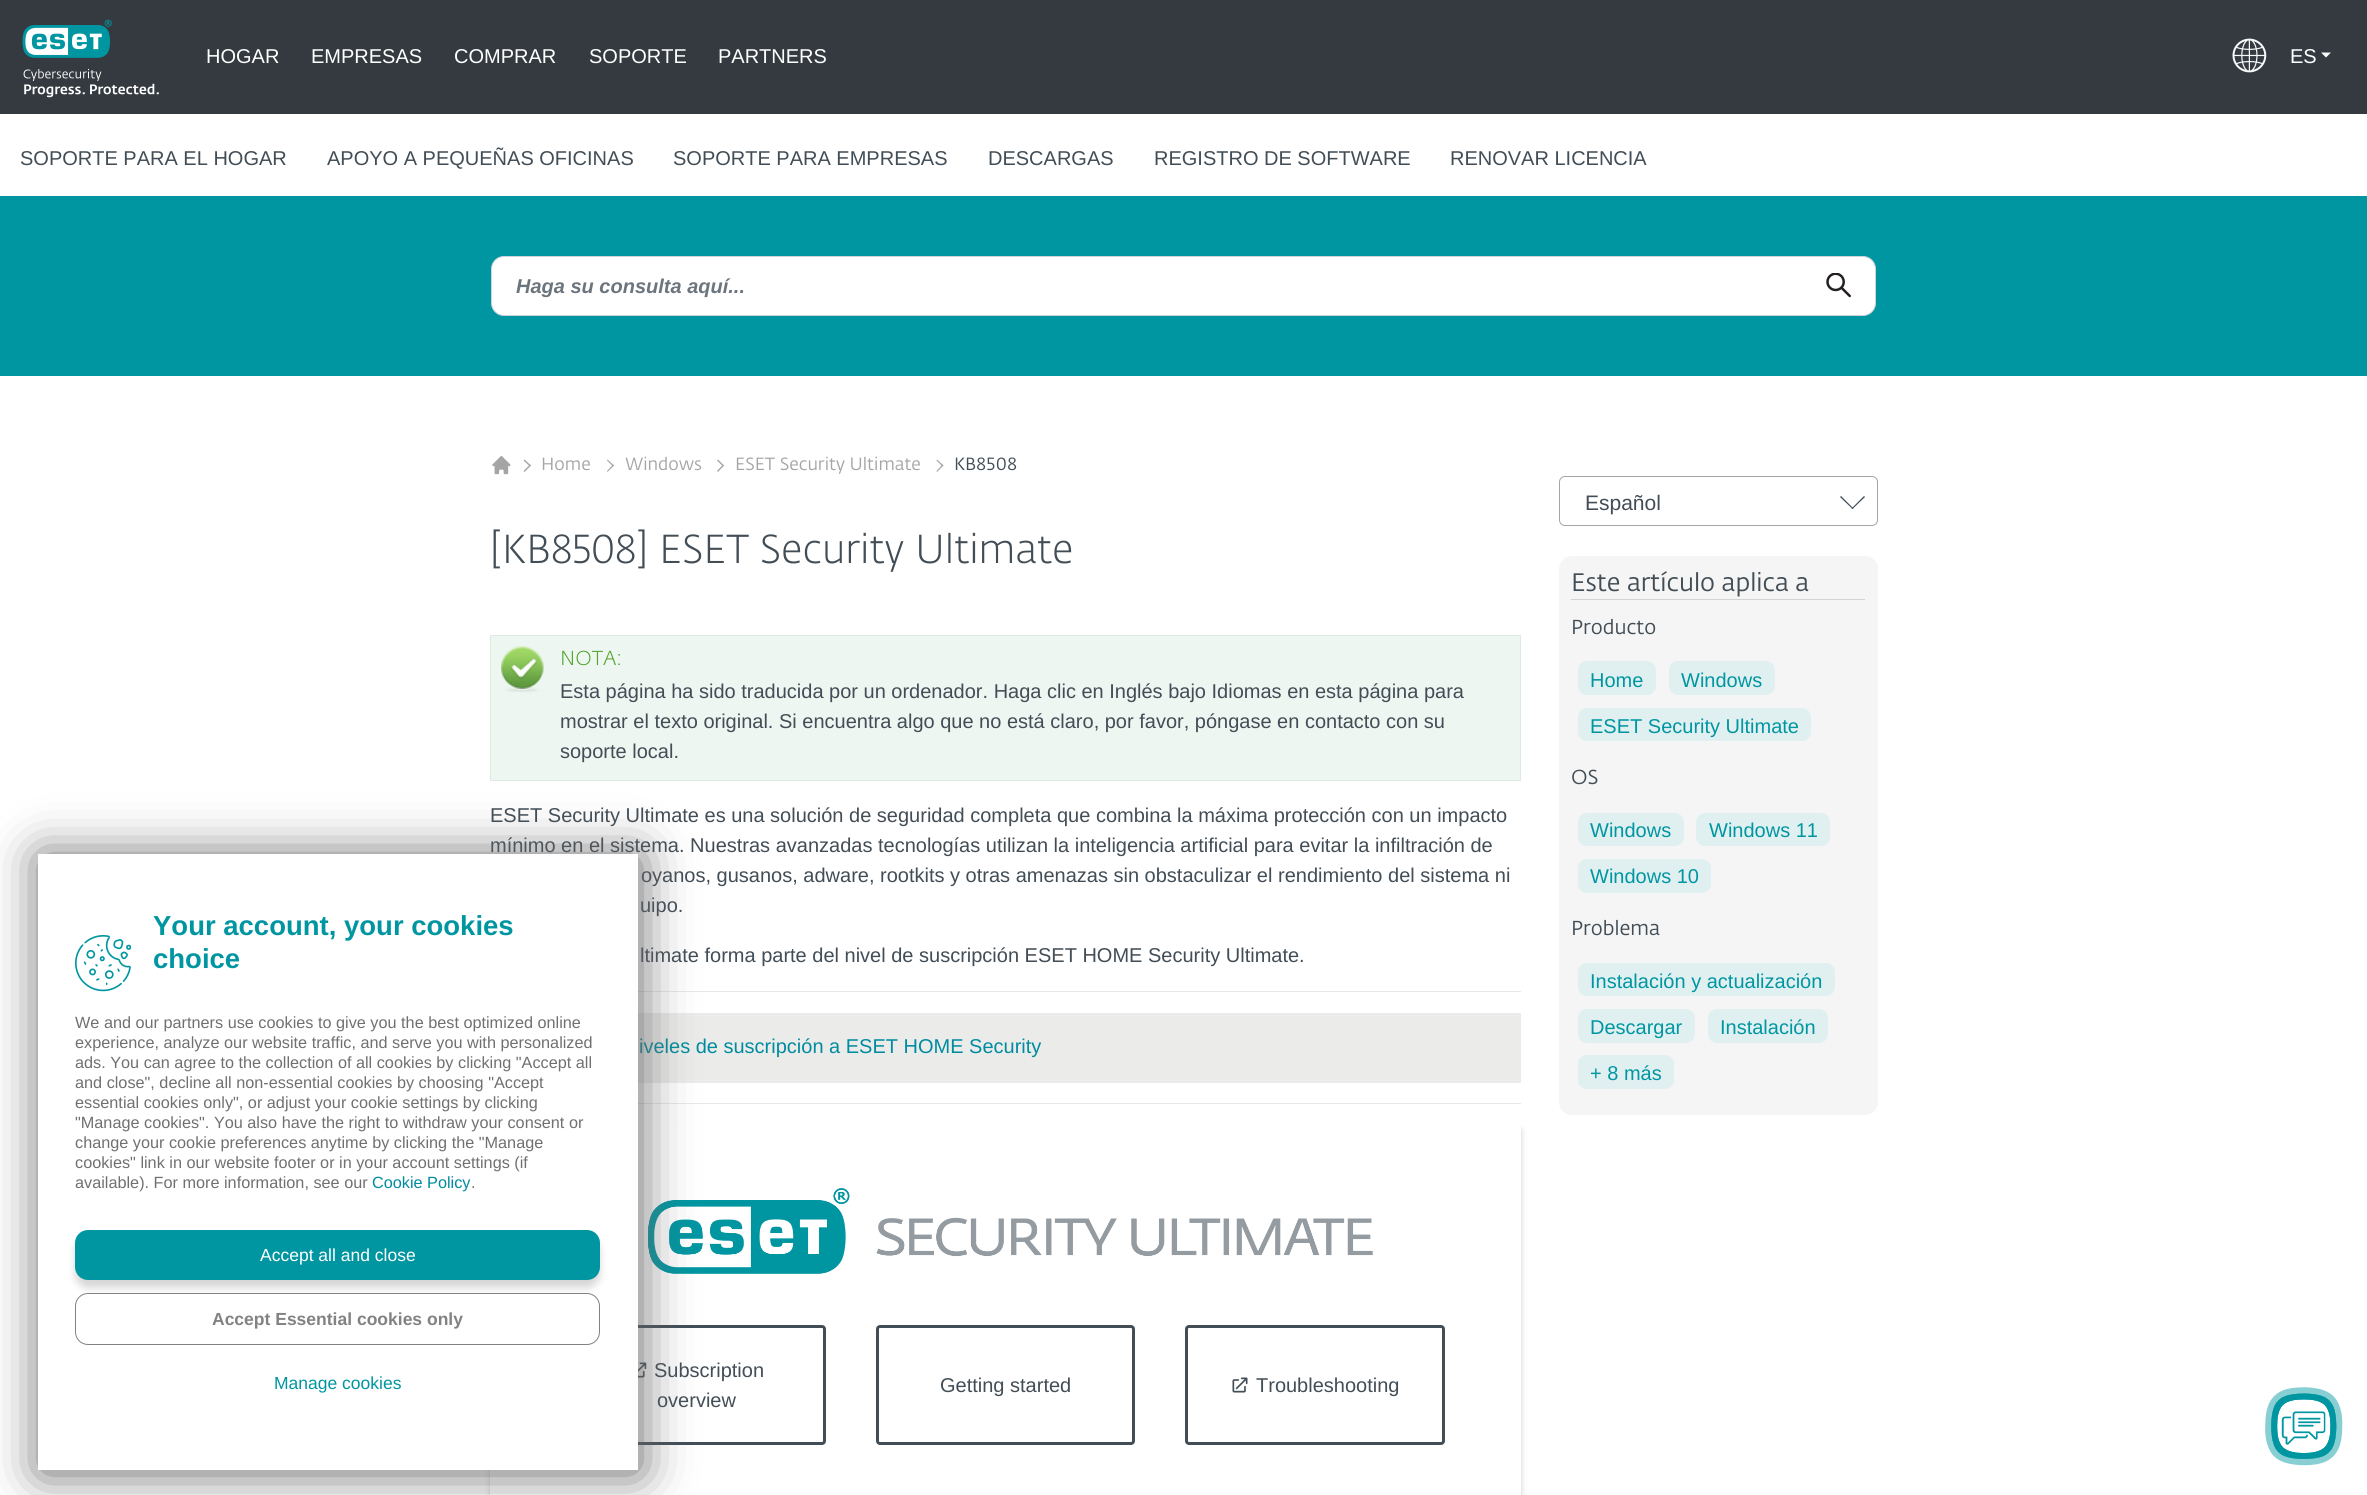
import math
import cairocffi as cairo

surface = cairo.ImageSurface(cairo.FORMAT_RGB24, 2367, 1495)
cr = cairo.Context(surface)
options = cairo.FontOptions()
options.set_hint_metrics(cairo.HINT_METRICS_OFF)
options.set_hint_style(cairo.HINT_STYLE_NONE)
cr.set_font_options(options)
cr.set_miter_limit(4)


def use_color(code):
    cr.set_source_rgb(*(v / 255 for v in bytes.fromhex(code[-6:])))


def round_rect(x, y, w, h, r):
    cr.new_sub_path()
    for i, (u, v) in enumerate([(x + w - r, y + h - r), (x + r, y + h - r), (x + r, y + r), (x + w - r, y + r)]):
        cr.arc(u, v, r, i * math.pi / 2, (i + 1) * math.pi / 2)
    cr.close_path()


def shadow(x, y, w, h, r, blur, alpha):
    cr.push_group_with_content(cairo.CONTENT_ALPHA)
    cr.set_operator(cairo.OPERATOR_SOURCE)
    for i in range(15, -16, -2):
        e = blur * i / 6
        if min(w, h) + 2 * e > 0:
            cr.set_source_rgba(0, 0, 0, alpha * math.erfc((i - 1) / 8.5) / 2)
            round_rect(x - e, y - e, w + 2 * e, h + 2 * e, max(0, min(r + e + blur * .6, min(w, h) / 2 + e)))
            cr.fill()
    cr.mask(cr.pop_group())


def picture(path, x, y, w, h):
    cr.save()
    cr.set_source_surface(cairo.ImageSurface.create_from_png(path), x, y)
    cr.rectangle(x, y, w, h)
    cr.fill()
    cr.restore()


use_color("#ffffff")
cr.paint()
use_color("#343a40")
cr.rectangle(0, 0, 2367, 114)
cr.fill()
picture("img1.png", 22, 19, 137, 79)
cr.select_font_face("Liberation Sans")
cr.set_font_size(20)
use_color("#ffffff")
cr.move_to(206, 63)
cr.show_text("HOGAR")
cr.move_to(311, 63)
cr.show_text("EMPRESAS")
cr.move_to(454, 63)
cr.show_text("COMPRAR")
cr.move_to(589, 63)
cr.show_text("SOPORTE")
cr.move_to(718, 63)
cr.show_text("PARTNERS")
picture("img2.png", 2232, 38, 35, 35)
cr.move_to(2290, 63)
cr.show_text("ES")
cr.new_path()
cr.move_to(2321, 52.5)
cr.line_to(2331, 52.5)
cr.line_to(2326, 57.5)
cr.close_path()
cr.fill()
use_color("#424d56")
cr.move_to(20, 165)
cr.show_text("SOPORTE PARA EL HOGAR")
cr.move_to(327, 165)
cr.show_text("APOYO A PEQUEÑAS OFICINAS")
cr.move_to(673, 165)
cr.show_text("SOPORTE PARA EMPRESAS")
cr.move_to(988, 165)
cr.show_text("DESCARGAS")
cr.move_to(1154, 165)
cr.show_text("REGISTRO DE SOFTWARE")
cr.move_to(1450, 165)
cr.show_text("RENOVAR LICENCIA")
use_color("#0096a1")
cr.rectangle(0, 196, 2367, 180)
cr.fill()
use_color("#ffffff")
round_rect(491.5, 256.5, 1384, 59, 12.5)
cr.fill_preserve()
use_color("#ced4da")
cr.set_line_width(1)
cr.stroke()
cr.select_font_face("Liberation Sans", cairo.FONT_SLANT_ITALIC, cairo.FONT_WEIGHT_BOLD)
use_color("#6c757d")
cr.move_to(516, 293)
cr.show_text("Haga su consulta aquí...")
picture("img3.png", 1826, 273, 25, 25)
picture("img4.png", 492, 456, 19, 19)
use_color("#a6a5a5")
cr.new_path()
cr.move_to(523.5, 460.5)
cr.line_to(524.5, 459.5)
cr.line_to(531, 465.5)
cr.line_to(530, 466.5)
cr.close_path()
cr.fill()
cr.new_path()
cr.move_to(523.5, 471)
cr.line_to(530, 464.5)
cr.line_to(531, 465.5)
cr.line_to(524.5, 472)
cr.close_path()
cr.fill()
cr.select_font_face("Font")
cr.set_font_size(17.5)
cr.move_to(541, 470)
cr.show_text("Home")
cr.new_path()
cr.move_to(607, 460.5)
cr.line_to(607.5, 459.5)
cr.line_to(614, 465.5)
cr.line_to(613, 466.5)
cr.close_path()
cr.fill()
cr.new_path()
cr.move_to(607, 471)
cr.line_to(613, 464.5)
cr.line_to(614, 465.5)
cr.line_to(607.5, 472)
cr.close_path()
cr.fill()
cr.move_to(625, 470)
cr.show_text("Windows")
cr.new_path()
cr.move_to(717, 460.5)
cr.line_to(718, 459.5)
cr.line_to(724, 465.5)
cr.line_to(723, 466.5)
cr.close_path()
cr.fill()
cr.new_path()
cr.move_to(717, 471)
cr.line_to(723, 464.5)
cr.line_to(724, 465.5)
cr.line_to(718, 472)
cr.close_path()
cr.fill()
cr.move_to(735, 470)
cr.show_text("ESET Security Ultimate")
cr.new_path()
cr.move_to(936.5, 460.5)
cr.line_to(937, 459.5)
cr.line_to(943.5, 465.5)
cr.line_to(942.5, 466.5)
cr.close_path()
cr.fill()
cr.new_path()
cr.move_to(936.5, 471)
cr.line_to(942.5, 464.5)
cr.line_to(943.5, 465.5)
cr.line_to(937, 472)
cr.close_path()
cr.fill()
use_color("#424d56")
cr.move_to(954, 470)
cr.show_text("KB8508")
cr.select_font_face("Font Light")
cr.set_font_size(40)
cr.move_to(490, 563)
cr.show_text("[KB8508] ESET Security Ultimate")
use_color("#eef6f1")
cr.rectangle(491, 636, 1029, 144)
cr.fill()
picture("img5.png", 501, 646, 43, 47)
cr.rectangle(490.5, 635.5, 1030, 145)
use_color("#daebe0")
cr.stroke()
cr.set_font_size(20)
use_color("#53a52c")
cr.move_to(560, 665)
cr.show_text("NOTA:")
cr.select_font_face("Liberation Sans")
use_color("#424d56")
cr.move_to(560, 698)
cr.show_text("Esta página ha sido traducida por un ordenador. Haga clic en Inglés bajo Idiomas en esta página para")
cr.move_to(560, 728)
cr.show_text("mostrar el texto original. Si encuentra algo que no está claro, por favor, póngase en contacto con su")
cr.move_to(560, 758)
cr.show_text("soporte local.")
cr.move_to(490, 822)
cr.show_text("ESET Security Ultimate es una solución de seguridad completa que combina la máxima protección con un impacto")
cr.move_to(490, 852)
cr.show_text("mínimo en el sistema. Nuestras avanzadas tecnologías utilizan la inteligencia artificial para evitar la infiltración de")
cr.move_to(641, 882)
cr.show_text("oyanos, gusanos, adware, rootkits y otras amenazas sin obstaculizar el rendimiento del sistema ni")
cr.move_to(640, 912)
cr.show_text("uipo.")
cr.move_to(640, 962)
cr.show_text("ltimate forma parte del nivel de suscripción ESET HOME Security Ultimate.")
use_color("#e8e8e9")
cr.rectangle(638, 991, 883, 1)
cr.fill()
use_color("#ebecea")
cr.rectangle(638, 1013, 883, 70)
cr.fill()
use_color("#008ba0")
cr.move_to(639, 1053)
cr.show_text("iveles de suscripción a ESET HOME Security")
use_color("#e8e8e9")
cr.rectangle(638, 1103, 883, 1)
cr.fill()
cr.save()
cr.set_fill_rule(cairo.FILL_RULE_EVEN_ODD)
cr.new_path()
cr.move_to(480, 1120)
cr.line_to(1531, 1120)
cr.line_to(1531, 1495)
cr.line_to(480, 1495)
cr.close_path()
cr.move_to(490, 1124)
cr.line_to(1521, 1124)
cr.line_to(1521, 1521)
cr.line_to(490, 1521)
cr.close_path()
cr.clip()
use_color("#cdcdcd")
shadow(490, 1130, 1031, 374, 0, 3, 1)
cr.restore()
picture("img6.png", 648, 1188, 725, 86)
round_rect(567.5, 1326.5, 257, 117, 2.5)
use_color("#424d56")
cr.set_line_width(3)
cr.stroke()
picture("img7.png", 638, 1362, 9, 16)
cr.move_to(654, 1377)
cr.show_text("Subscription")
cr.move_to(657, 1407)
cr.show_text("overview")
round_rect(877.5, 1326.5, 256, 117, 2.5)
cr.stroke()
cr.move_to(940, 1392)
cr.show_text("Getting started")
round_rect(1186.5, 1326.5, 257, 117, 2.5)
cr.stroke()
picture("img8.png", 1232, 1377, 16, 16)
cr.move_to(1256, 1392)
cr.show_text("Troubleshooting")
round_rect(1559.5, 476.5, 318, 49, 5.5)
use_color("#a6a5a5")
cr.set_line_width(1)
cr.stroke()
cr.set_font_size(21)
use_color("#424d56")
cr.move_to(1585, 510)
cr.show_text("Español")
cr.new_path()
cr.move_to(1864, 496)
cr.line_to(1865, 497)
cr.line_to(1852.5, 509)
cr.line_to(1851.5, 508.5)
cr.close_path()
cr.fill()
cr.new_path()
cr.move_to(1841, 496)
cr.line_to(1853.5, 508.5)
cr.line_to(1852.5, 509)
cr.line_to(1840, 497)
cr.close_path()
cr.fill()
use_color("#f4f5f4")
round_rect(1559, 556, 319, 559, 13)
cr.fill()
use_color("#d3d3d3")
cr.rectangle(1571, 599, 294, 1)
cr.fill()
cr.select_font_face("Font")
cr.set_font_size(25)
use_color("#424d56")
cr.move_to(1571, 591)
cr.show_text("Este artículo aplica a")
cr.set_font_size(20)
cr.move_to(1571, 634)
cr.show_text("Producto")
use_color("#e0f0f1")
round_rect(1578, 661, 78, 34, 9)
cr.fill()
cr.select_font_face("Liberation Sans")
use_color("#0096a1")
cr.move_to(1590, 687)
cr.show_text("Home")
use_color("#e0f0f1")
round_rect(1669, 661, 106, 34, 9)
cr.fill()
use_color("#0096a1")
cr.move_to(1681, 687)
cr.show_text("Windows")
use_color("#e0f0f1")
round_rect(1578, 708, 233, 33, 9)
cr.fill()
use_color("#0096a1")
cr.move_to(1590, 733)
cr.show_text("ESET Security Ultimate")
cr.select_font_face("Font")
use_color("#424d56")
cr.move_to(1571, 784)
cr.show_text("OS")
use_color("#e0f0f1")
round_rect(1578, 813, 106, 33, 9)
cr.fill()
cr.select_font_face("Liberation Sans")
use_color("#0096a1")
cr.move_to(1590, 837)
cr.show_text("Windows")
use_color("#e0f0f1")
round_rect(1696, 813, 134, 33, 9)
cr.fill()
use_color("#0096a1")
cr.move_to(1709, 837)
cr.show_text("Windows 11")
use_color("#e0f0f1")
round_rect(1578, 859, 133, 34, 9)
cr.fill()
use_color("#0096a1")
cr.move_to(1590, 883)
cr.show_text("Windows 10")
cr.select_font_face("Font")
use_color("#424d56")
cr.move_to(1571, 935)
cr.show_text("Problema")
use_color("#e0f0f1")
round_rect(1578, 963, 257, 33, 9)
cr.fill()
cr.select_font_face("Liberation Sans")
use_color("#0096a1")
cr.move_to(1590, 988)
cr.show_text("Instalación y actualización")
use_color("#e0f0f1")
round_rect(1578, 1009, 117, 34, 9)
cr.fill()
use_color("#0096a1")
cr.move_to(1590, 1034)
cr.show_text("Descargar")
use_color("#e0f0f1")
round_rect(1708, 1009, 120, 34, 9)
cr.fill()
use_color("#0096a1")
cr.move_to(1720, 1034)
cr.show_text("Instalación")
use_color("#e0f0f1")
round_rect(1578, 1055, 96, 34, 9)
cr.fill()
use_color("#0096a1")
cr.move_to(1590, 1080)
cr.show_text("+ 8 más")
cr.new_path()
cr.move_to(2332, 1404.5)
cr.curve_to(2327, 1395.5, 2316, 1394, 2306.5, 1393.5)
cr.curve_to(2282, 1393, 2272, 1399, 2271.5, 1423.5)
cr.curve_to(2271, 1432, 2271.5, 1440.5, 2275.5, 1448)
cr.curve_to(2280, 1457, 2292.5, 1458.5, 2301.5, 1459)
cr.curve_to(2325.5, 1459.5, 2335.5, 1453, 2336, 1429)
cr.curve_to(2336.5, 1421, 2336, 1411.5, 2332, 1404.5)
cr.close_path()
cr.move_to(2304, 1453)
cr.curve_to(2297, 1453, 2288, 1452.5, 2282.5, 1447)
cr.curve_to(2275, 1439.5, 2275, 1413, 2282.5, 1405)
cr.curve_to(2288, 1400, 2297, 1399.5, 2304, 1399.5)
cr.curve_to(2310.5, 1399.5, 2319.5, 1400, 2325, 1405)
cr.curve_to(2332.5, 1413, 2332.5, 1439, 2325, 1447)
cr.curve_to(2319.5, 1452.5, 2310.5, 1453, 2304, 1453)
cr.close_path()
use_color("#87cfd3")
cr.set_line_width(12.4)
cr.set_line_join(cairo.LINE_JOIN_ROUND)
cr.stroke()
picture("img9.png", 2271, 1393, 66, 66)
use_color("#666666")
shadow(40, 856, 600, 617, 0, 25, 1)
use_color("#ffffff")
cr.rectangle(38, 854, 600, 616)
cr.fill()
cr.select_font_face("Liberation Sans", cairo.FONT_SLANT_NORMAL, cairo.FONT_WEIGHT_BOLD)
cr.set_font_size(27.5)
use_color("#0096a1")
cr.move_to(153, 935)
cr.show_text("Your account, your cookies")
cr.move_to(153, 968)
cr.show_text("choice")
cr.select_font_face("Liberation Sans")
cr.set_font_size(16.25)
use_color("#707070")
cr.move_to(75, 1028)
cr.show_text("We and our partners use cookies to give you the best optimized online")
cr.move_to(75, 1048)
cr.show_text("experience, analyze our website traffic, and serve you with personalized")
cr.move_to(75, 1068)
cr.show_text("ads. You can agree to the collection of all cookies by clicking \"Accept all")
cr.move_to(75, 1088)
cr.show_text("and close\", decline all non-essential cookies by choosing \"Accept")
cr.move_to(75, 1108)
cr.show_text("essential cookies only\", or adjust your cookie settings by clicking")
cr.move_to(75, 1128)
cr.show_text("\"Manage cookies\". You also have the right to withdraw your consent or")
cr.move_to(75, 1148)
cr.show_text("change your cookie preferences anytime by clicking the \"Manage")
cr.move_to(75, 1168)
cr.show_text("cookies\" link in our website footer or in your account settings (if")
cr.move_to(75, 1188)
cr.show_text("available). For more information, see our")
use_color("#008ba0")
cr.move_to(372, 1188)
cr.show_text("Cookie Policy")
use_color("#707070")
cr.move_to(471, 1188)
cr.show_text(".")
picture("img10.png", 75, 935, 56, 57)
use_color("#000000")
shadow(75, 1238, 525, 50, 13, 4, 0.16)
use_color("#0096a1")
round_rect(75, 1230, 525, 50, 13)
cr.fill()
cr.set_font_size(17.5)
use_color("#ffffff")
cr.move_to(260, 1261)
cr.show_text("Accept all and close")
round_rect(75.5, 1293.5, 524, 51, 12.5)
cr.fill_preserve()
use_color("#828282")
cr.set_line_width(1)
cr.set_line_join(cairo.LINE_JOIN_MITER)
cr.stroke()
cr.select_font_face("Liberation Sans", cairo.FONT_SLANT_NORMAL, cairo.FONT_WEIGHT_BOLD)
cr.move_to(212, 1325)
cr.show_text("Accept Essential cookies only")
cr.select_font_face("Liberation Sans")
use_color("#0096a1")
cr.move_to(274, 1389)
cr.show_text("Manage cookies")
surface.write_to_png("result.png")
